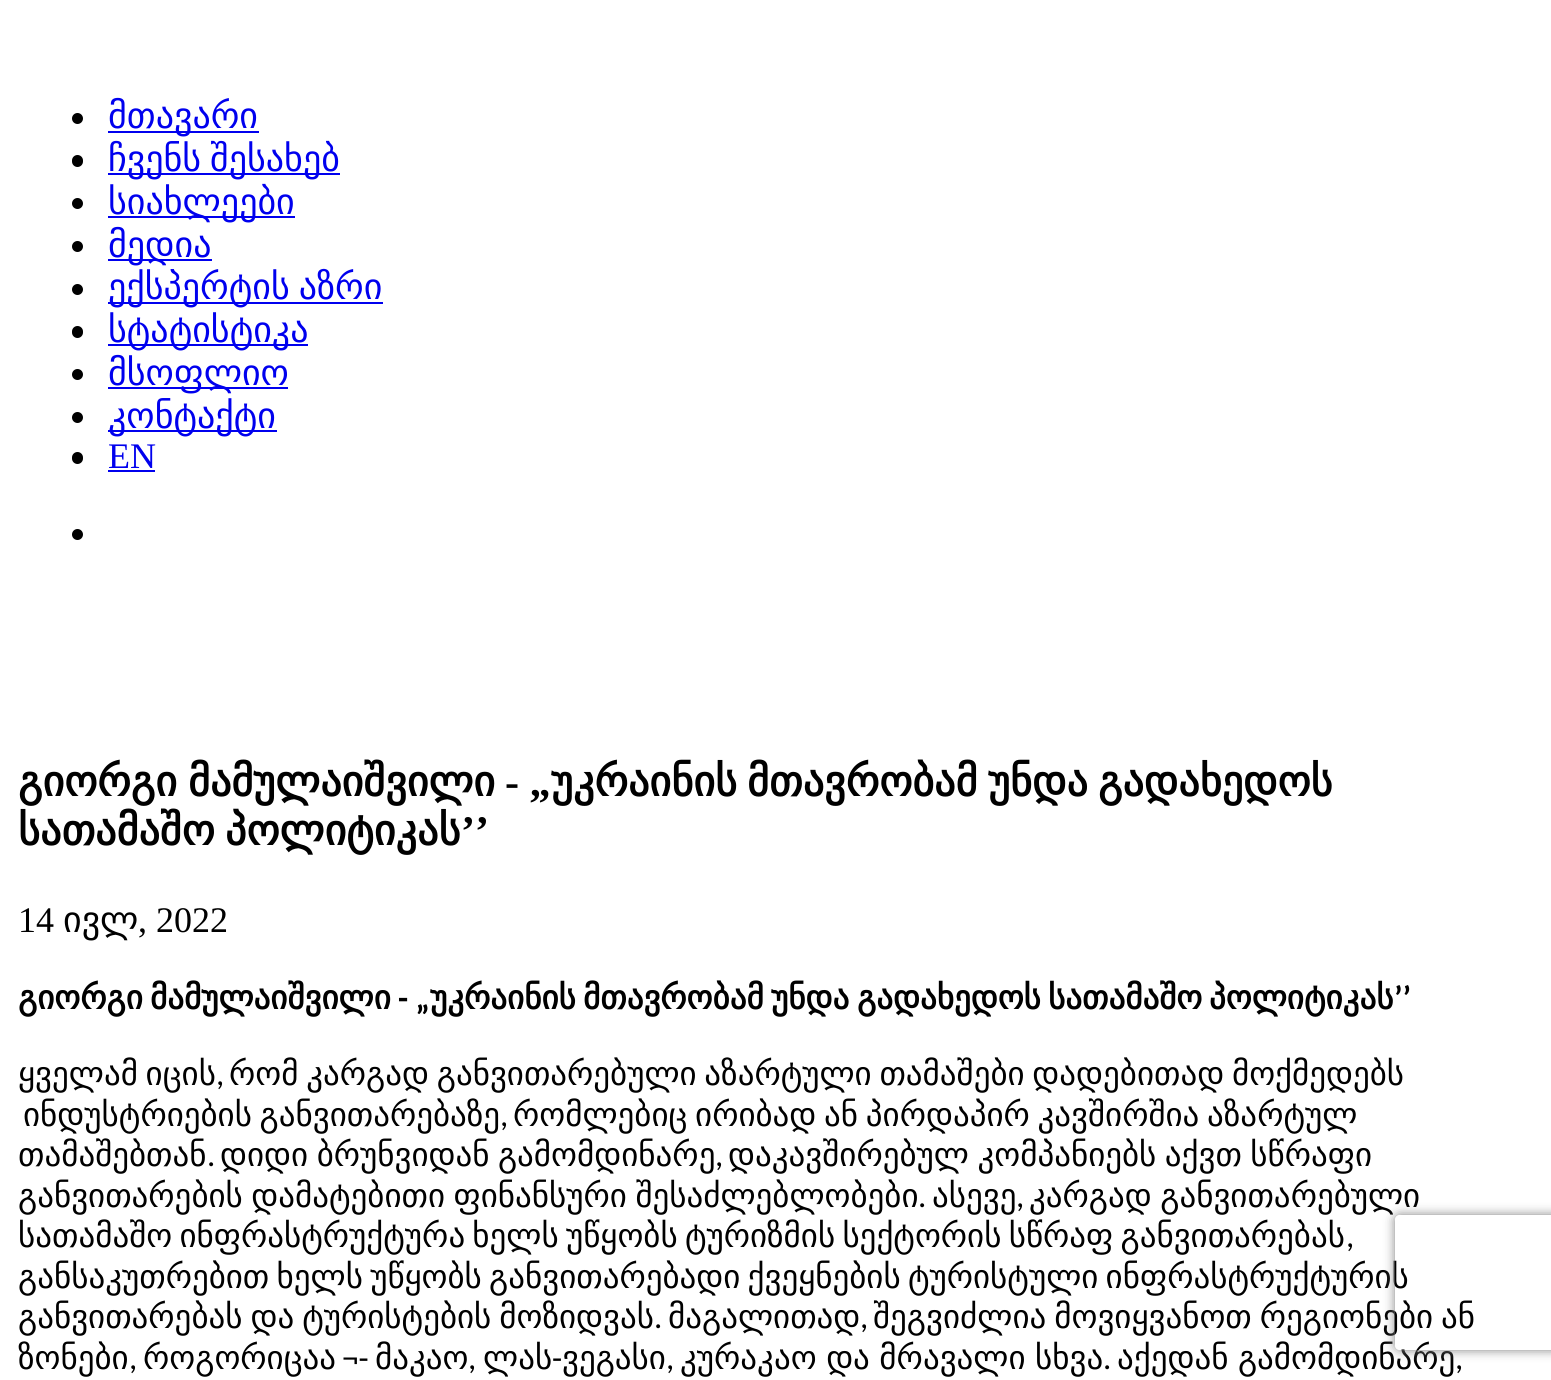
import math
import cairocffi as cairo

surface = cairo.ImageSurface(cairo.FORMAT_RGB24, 1551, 1380)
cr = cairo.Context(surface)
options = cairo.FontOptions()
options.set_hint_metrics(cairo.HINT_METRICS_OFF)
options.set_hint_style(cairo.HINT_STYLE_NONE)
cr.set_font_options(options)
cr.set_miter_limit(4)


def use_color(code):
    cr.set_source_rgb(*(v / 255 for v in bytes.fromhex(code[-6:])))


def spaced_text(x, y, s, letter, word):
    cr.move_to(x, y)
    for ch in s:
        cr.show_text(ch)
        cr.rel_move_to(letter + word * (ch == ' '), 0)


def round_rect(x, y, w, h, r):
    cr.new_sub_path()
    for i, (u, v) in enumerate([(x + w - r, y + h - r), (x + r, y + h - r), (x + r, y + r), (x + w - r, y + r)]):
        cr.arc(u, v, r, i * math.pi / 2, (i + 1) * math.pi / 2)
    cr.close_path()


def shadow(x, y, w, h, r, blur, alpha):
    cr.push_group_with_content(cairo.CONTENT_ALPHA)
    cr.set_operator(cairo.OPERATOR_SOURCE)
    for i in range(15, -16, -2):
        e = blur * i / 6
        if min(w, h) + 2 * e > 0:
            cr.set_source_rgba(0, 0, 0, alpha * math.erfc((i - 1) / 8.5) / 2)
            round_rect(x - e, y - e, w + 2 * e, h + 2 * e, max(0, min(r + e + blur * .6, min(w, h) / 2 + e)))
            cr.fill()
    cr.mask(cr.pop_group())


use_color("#ffffff")
cr.paint()
use_color("#000000")
cr.arc(77.5, 118.5, 5.5, 0, 2 * math.pi)
cr.fill()
use_color("#0000ee")
cr.rectangle(108, 131, 151, 2)
cr.fill()
cr.select_font_face("DejaVu Sans")
cr.set_font_size(36)
cr.move_to(108, 128)
cr.show_text("მთავარი")
use_color("#000000")
round_rect(72, 155, 11, 12, 5.5)
cr.fill()
use_color("#0000ee")
cr.rectangle(108, 173, 232, 2)
cr.fill()
spaced_text(108, 171, "ჩვენს შესახებ", 0, -2.5)
use_color("#000000")
cr.new_path()
cr.arc(77.5, 203.5, 5.5, 0, 2 * math.pi)
cr.fill()
use_color("#0000ee")
cr.rectangle(108, 216, 187, 2)
cr.fill()
cr.move_to(108, 214)
cr.show_text("სიახლეები")
use_color("#000000")
cr.new_path()
cr.arc(77.5, 246.5, 5.5, 0, 2 * math.pi)
cr.fill()
use_color("#0000ee")
cr.rectangle(108, 259, 104, 2)
cr.fill()
cr.move_to(108, 257)
cr.show_text("მედია")
use_color("#000000")
cr.new_path()
cr.arc(77.5, 289.5, 5.5, 0, 2 * math.pi)
cr.fill()
use_color("#0000ee")
cr.rectangle(108, 302, 275, 2)
cr.fill()
spaced_text(108, 299, "ექსპერტის აზრი", 0, -2.5)
use_color("#000000")
round_rect(72, 326, 11, 12, 5.5)
cr.fill()
use_color("#0000ee")
cr.rectangle(108, 344, 200, 2)
cr.fill()
cr.move_to(108, 342)
cr.show_text("სტატისტიკა")
use_color("#000000")
cr.new_path()
cr.arc(77.5, 374.5, 5.5, 0, 2 * math.pi)
cr.fill()
use_color("#0000ee")
cr.rectangle(108, 387, 180, 2)
cr.fill()
cr.move_to(108, 385)
cr.show_text("მსოფლიო")
use_color("#000000")
cr.new_path()
cr.arc(77.5, 417.5, 5.5, 0, 2 * math.pi)
cr.fill()
use_color("#0000ee")
cr.rectangle(108, 430, 169, 2)
cr.fill()
cr.move_to(108, 428)
cr.show_text("კონტაქტი")
use_color("#000000")
round_rect(72, 452, 11, 12, 5.5)
cr.fill()
cr.select_font_face("Liberation Serif")
use_color("#0000ee")
cr.move_to(108, 468)
cr.show_text("EN")
cr.rectangle(108, 470, 47, 2)
cr.fill()
use_color("#000000")
cr.arc(77.5, 534.5, 5.5, 0, 2 * math.pi)
cr.fill()
cr.select_font_face("DejaVu Sans", cairo.FONT_SLANT_NORMAL, cairo.FONT_WEIGHT_BOLD)
cr.set_font_size(42.1)
cr.move_to(18, 796)
cr.show_text("გიორგი")
cr.move_to(188, 796)
cr.show_text("მამულაიშვილი")
cr.select_font_face("Liberation Serif", cairo.FONT_SLANT_NORMAL, cairo.FONT_WEIGHT_BOLD)
cr.move_to(505, 796)
cr.show_text("- „")
cr.select_font_face("DejaVu Sans", cairo.FONT_SLANT_NORMAL, cairo.FONT_WEIGHT_BOLD)
cr.move_to(551, 796)
cr.show_text("უკრაინის")
cr.move_to(747, 796)
cr.show_text("მთავრობამ")
cr.move_to(988, 796)
cr.show_text("უნდა")
cr.move_to(1098, 796)
cr.show_text("გადახედოს")
spaced_text(18, 845, "სათამაშო პოლიტიკას", 0, -3)
cr.select_font_face("Liberation Serif", cairo.FONT_SLANT_NORMAL, cairo.FONT_WEIGHT_BOLD)
cr.move_to(461, 845)
cr.show_text("’’")
cr.select_font_face("Liberation Serif")
cr.set_font_size(36)
cr.move_to(18, 932)
cr.show_text("14")
cr.select_font_face("DejaVu Sans")
cr.move_to(63, 932)
cr.show_text("ივლ")
cr.select_font_face("Liberation Serif")
cr.move_to(138, 932)
cr.show_text(", 2022")
cr.select_font_face("DejaVu Sans", cairo.FONT_SLANT_NORMAL, cairo.FONT_WEIGHT_BOLD)
cr.set_font_size(33)
cr.move_to(18, 1009)
cr.show_text("გიორგი")
cr.move_to(150, 1009)
cr.show_text("მამულაიშვილი")
cr.move_to(430, 1009)
cr.show_text("უკრაინის")
cr.move_to(583, 1009)
cr.show_text("მთავრობამ")
cr.move_to(771, 1009)
cr.show_text("უნდა")
cr.move_to(857, 1009)
cr.show_text("გადახედოს")
cr.move_to(1048, 1009)
cr.show_text("სათამაშო")
cr.move_to(1209, 1009)
cr.show_text("პოლიტიკას")
cr.select_font_face("Carlito", cairo.FONT_SLANT_NORMAL, cairo.FONT_WEIGHT_BOLD)
cr.move_to(1394, 1009)
cr.show_text("’’")
cr.move_to(398, 1009)
cr.show_text("- „")
cr.select_font_face("DejaVu Sans")
spaced_text(18, 1085, "ყველამ იცის", 0, -2.75)
cr.select_font_face("Carlito")
cr.move_to(216, 1085)
cr.show_text(",")
cr.select_font_face("DejaVu Sans")
spaced_text(229, 1085, "რომ კარგად განვითარებული აზარტული თამაშები დადებითად მოქმედებს", 0, -2.75)
spaced_text(23, 1126, "ინდუსტრიების განვითარებაზე", 0, -2.75)
cr.select_font_face("Carlito")
cr.move_to(500, 1126)
cr.show_text(",")
cr.select_font_face("DejaVu Sans")
spaced_text(513, 1126, "რომლებიც ირიბად ან პირდაპირ კავშირშია აზარტულ", 0, -2.75)
cr.move_to(18, 1166)
cr.show_text("თამაშებთან")
cr.select_font_face("Carlito")
cr.move_to(207, 1166)
cr.show_text(".")
cr.select_font_face("DejaVu Sans")
spaced_text(220, 1166, "დიდი ბრუნვიდან გამომდინარე", 0, -2)
cr.select_font_face("Carlito")
cr.move_to(715, 1166)
cr.show_text(",")
cr.select_font_face("DejaVu Sans")
spaced_text(728, 1166, "დაკავშირებულ კომპანიებს აქვთ სწრაფი", 0, -2)
spaced_text(18, 1207, "განვითარების დამატებითი ფინანსური შესაძლებლობები", 0, -2)
cr.select_font_face("Carlito")
cr.move_to(918, 1207)
cr.show_text(".")
cr.select_font_face("DejaVu Sans")
cr.move_to(932, 1207)
cr.show_text("ასევე")
cr.select_font_face("Carlito")
cr.move_to(1016, 1207)
cr.show_text(",")
cr.select_font_face("DejaVu Sans")
spaced_text(1029, 1207, "კარგად განვითარებული", 0, -2)
spaced_text(18, 1247, "სათამაშო ინფრასტრუქტურა ხელს უწყობს ტურიზმის სექტორის სწრაფ განვითარებას", 0, -3.25)
cr.select_font_face("Carlito")
cr.move_to(1346, 1247)
cr.show_text(",")
cr.select_font_face("DejaVu Sans")
spaced_text(18, 1288, "განსაკუთრებით ხელს უწყობს განვითარებადი ქვეყნების ტურისტული ინფრასტრუქტურის", 0, -3.25)
spaced_text(18, 1328, "განვითარებას და ტურისტების მოზიდვას", 0, -2.5)
cr.select_font_face("Carlito")
cr.move_to(654, 1328)
cr.show_text(".")
cr.select_font_face("DejaVu Sans")
cr.move_to(668, 1328)
cr.show_text("მაგალითად")
cr.select_font_face("Carlito")
cr.move_to(860, 1328)
cr.show_text(",")
cr.select_font_face("DejaVu Sans")
spaced_text(873, 1328, "შეგვიძლია მოვიყვანოთ რეგიონები ან", 0, -2.5)
cr.move_to(18, 1369)
cr.show_text("ზონები")
cr.move_to(143, 1369)
cr.show_text("როგორიცაა")
cr.select_font_face("Carlito")
cr.move_to(342, 1369)
cr.show_text("¬-")
cr.select_font_face("DejaVu Sans")
cr.move_to(375, 1369)
cr.show_text("მაკაო")
cr.move_to(483, 1369)
cr.show_text("ლას")
cr.select_font_face("Carlito")
cr.move_to(552, 1369)
cr.show_text("-")
cr.select_font_face("DejaVu Sans")
cr.move_to(562, 1369)
cr.show_text("ვეგასი")
spaced_text(680, 1369, "კურაკაო და მრავალი სხვა", 0, -1)
spaced_text(1117, 1369, "აქედან გამომდინარე", 0, -1)
cr.select_font_face("Carlito")
cr.move_to(129, 1369)
cr.show_text(",")
cr.move_to(468, 1369)
cr.show_text(",")
cr.move_to(666, 1369)
cr.show_text(",")
cr.move_to(1103, 1369)
cr.show_text(".")
cr.move_to(1455, 1369)
cr.show_text(",")
cr.save()
cr.set_fill_rule(cairo.FILL_RULE_EVEN_ODD)
cr.new_path()
cr.move_to(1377, 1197)
cr.line_to(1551, 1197)
cr.line_to(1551, 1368)
cr.line_to(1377, 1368)
cr.close_path()
cr.move_to(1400, 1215)
cr.line_to(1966, 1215)
cr.curve_to(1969, 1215, 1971, 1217, 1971, 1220)
cr.line_to(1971, 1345)
cr.curve_to(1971, 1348, 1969, 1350, 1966, 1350)
cr.line_to(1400, 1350)
cr.curve_to(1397, 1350, 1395, 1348, 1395, 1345)
cr.line_to(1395, 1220)
cr.curve_to(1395, 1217, 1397, 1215, 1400, 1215)
cr.close_path()
cr.clip()
use_color("#808080")
shadow(1395, 1215, 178, 135, 5, 5.5, 1)
cr.restore()
surface.write_to_png("result.png")
